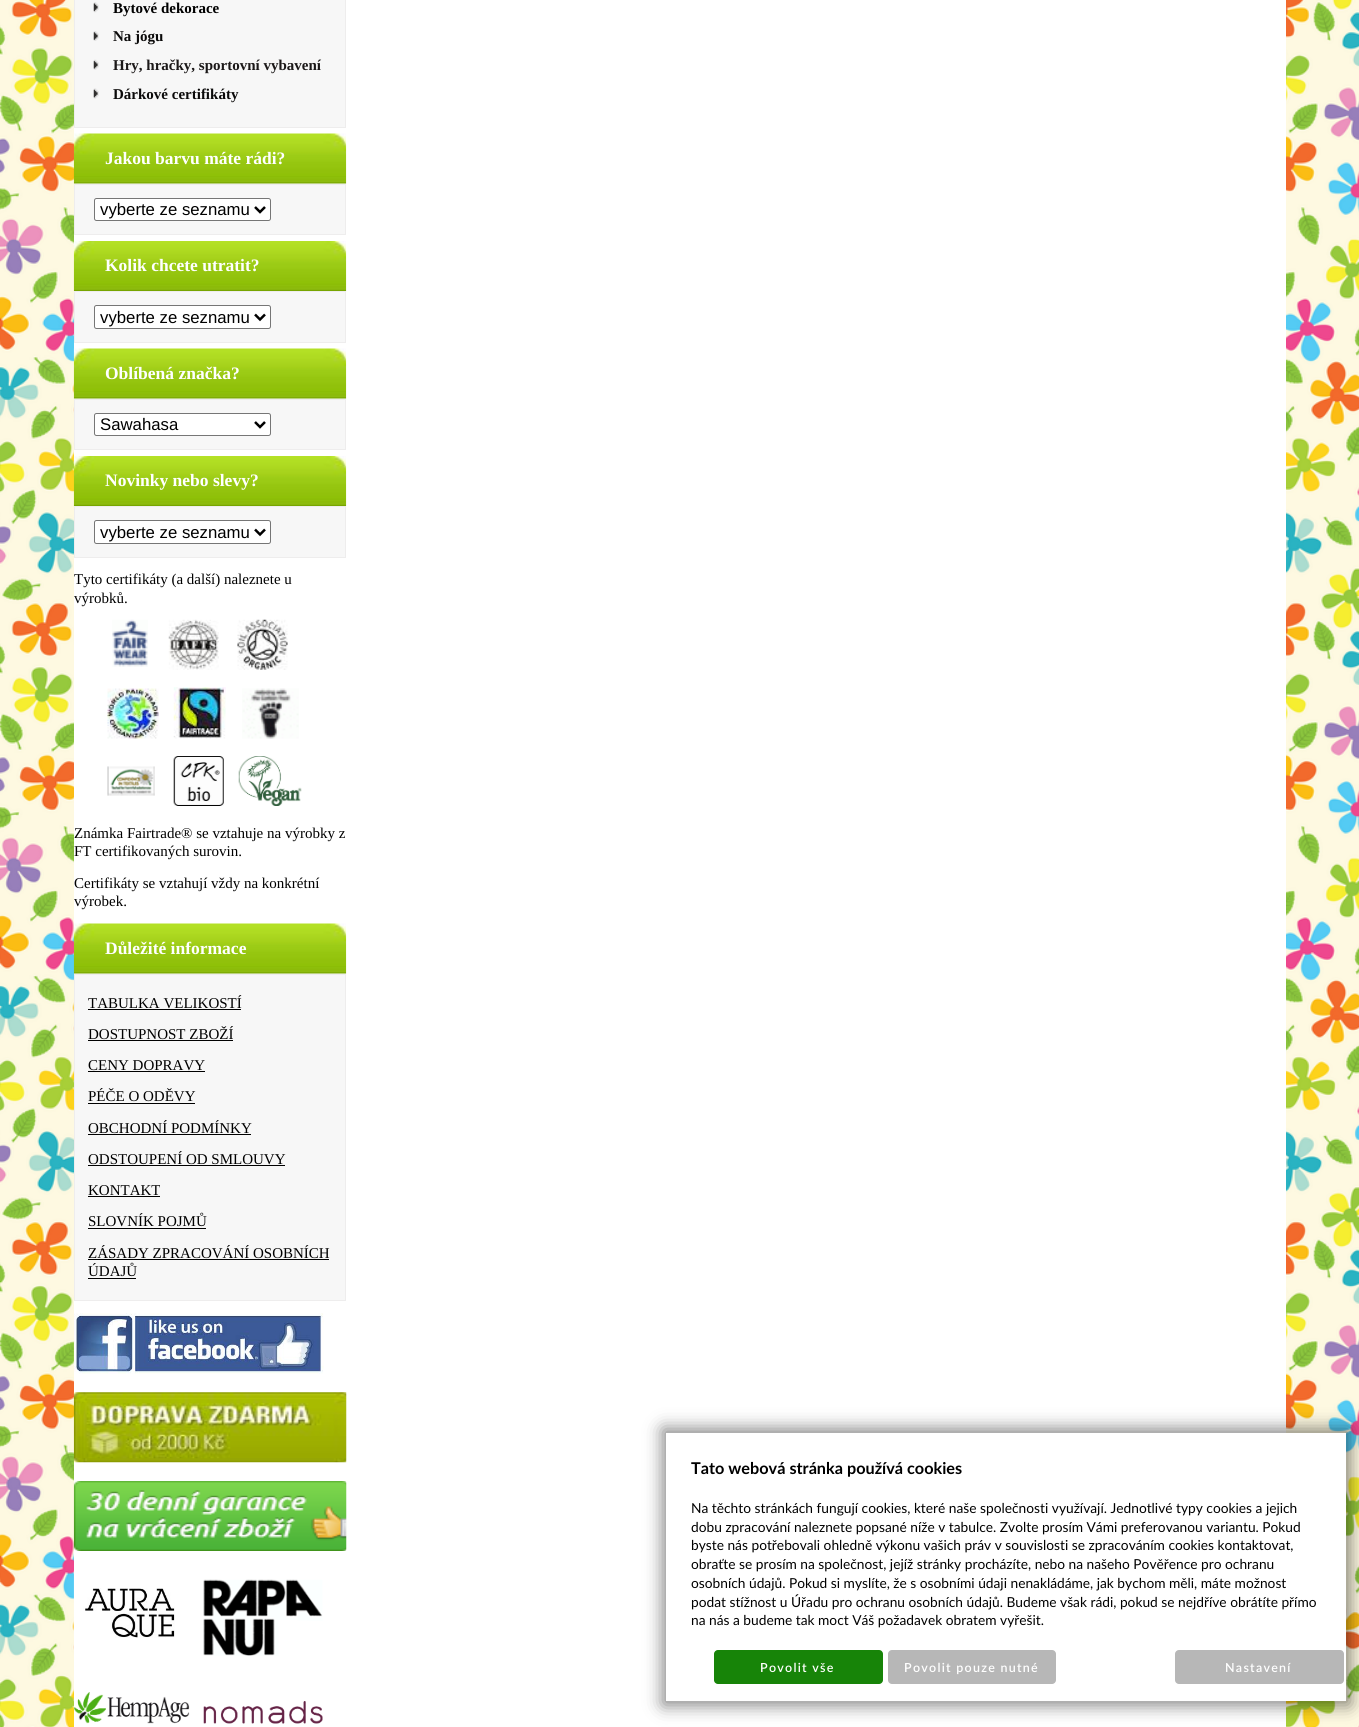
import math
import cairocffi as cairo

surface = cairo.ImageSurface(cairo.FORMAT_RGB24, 1359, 1727)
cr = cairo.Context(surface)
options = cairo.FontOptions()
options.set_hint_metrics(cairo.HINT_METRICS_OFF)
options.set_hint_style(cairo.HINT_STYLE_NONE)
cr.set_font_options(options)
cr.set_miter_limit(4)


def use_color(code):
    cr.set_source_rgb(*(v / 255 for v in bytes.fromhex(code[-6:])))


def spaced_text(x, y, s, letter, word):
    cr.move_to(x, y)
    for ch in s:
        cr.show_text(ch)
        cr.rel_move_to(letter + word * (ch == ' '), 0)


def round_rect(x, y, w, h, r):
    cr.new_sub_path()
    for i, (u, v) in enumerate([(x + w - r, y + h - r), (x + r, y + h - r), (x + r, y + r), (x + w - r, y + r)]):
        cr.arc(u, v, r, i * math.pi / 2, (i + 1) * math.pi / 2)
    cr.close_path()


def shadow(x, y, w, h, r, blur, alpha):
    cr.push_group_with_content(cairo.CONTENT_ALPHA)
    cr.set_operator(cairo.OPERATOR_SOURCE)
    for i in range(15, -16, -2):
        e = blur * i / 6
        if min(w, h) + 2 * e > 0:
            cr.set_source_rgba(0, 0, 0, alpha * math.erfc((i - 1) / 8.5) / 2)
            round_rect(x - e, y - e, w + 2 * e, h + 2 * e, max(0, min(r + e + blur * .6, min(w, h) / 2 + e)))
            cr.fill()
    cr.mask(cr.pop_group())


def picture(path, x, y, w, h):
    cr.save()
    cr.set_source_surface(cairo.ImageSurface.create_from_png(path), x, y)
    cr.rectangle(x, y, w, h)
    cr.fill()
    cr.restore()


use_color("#ffffff")
cr.paint()
picture("img1.png", 0, 0, 1359, 1727)
use_color("#ffffff")
cr.rectangle(74, 0, 1212, 1727)
cr.fill()
use_color("#f7f7f7")
cr.rectangle(74.5, -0.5, 271, 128)
cr.fill_preserve()
use_color("#eeeded")
cr.set_line_width(1)
cr.stroke()
picture("img2.png", 93, 2, 6, 11)
cr.select_font_face("Liberation Serif", cairo.FONT_SLANT_NORMAL, cairo.FONT_WEIGHT_BOLD)
cr.set_font_size(15)
use_color("#000000")
cr.move_to(113, 13)
cr.show_text("Bytové dekorace")
picture("img3.png", 93, 31, 6, 10)
use_color("#0b0a0a")
cr.move_to(113, 41)
cr.show_text("Na jógu")
picture("img4.png", 93, 59, 6, 11)
use_color("#1b1818")
cr.move_to(113, 70)
cr.show_text("Hry, hračky, sportovní vybavení")
picture("img5.png", 93, 88, 6, 11)
use_color("#0b0a0a")
cr.move_to(113, 99)
cr.show_text("Dárkové certifikáty")
picture("img6.png", 73, 133, 274, 51)
cr.set_font_size(17.5)
use_color("#ffffff")
cr.move_to(105, 164)
cr.show_text("Jakou barvu máte rádi?")
use_color("#f7f7f7")
cr.rectangle(74.5, 184.5, 271, 50)
cr.fill_preserve()
use_color("#eeeded")
cr.stroke()
use_color("#ffffff")
round_rect(94.5, 198.5, 176, 22, 2)
cr.fill_preserve()
use_color("#767676")
cr.stroke()
cr.new_path()
cr.move_to(255, 207)
cr.line_to(260, 212)
cr.line_to(265, 207)
use_color("#000000")
cr.set_line_width(2.5)
cr.stroke()
cr.select_font_face("Liberation Sans")
cr.set_font_size(16.75)
cr.move_to(100, 215)
cr.show_text("vyberte ze seznamu")
picture("img7.png", 73, 241, 274, 50)
cr.select_font_face("Liberation Serif", cairo.FONT_SLANT_NORMAL, cairo.FONT_WEIGHT_BOLD)
cr.set_font_size(17.5)
use_color("#ffffff")
cr.move_to(105, 271)
cr.show_text("Kolik chcete utratit?")
use_color("#f7f7f7")
cr.rectangle(74.5, 291.5, 271, 51)
cr.fill_preserve()
use_color("#eeeded")
cr.set_line_width(1)
cr.stroke()
use_color("#ffffff")
round_rect(94.5, 305.5, 176, 23, 2)
cr.fill_preserve()
use_color("#767676")
cr.stroke()
cr.new_path()
cr.move_to(255, 314.5)
cr.line_to(260, 319.5)
cr.line_to(265, 314.5)
use_color("#000000")
cr.set_line_width(2.5)
cr.stroke()
cr.select_font_face("Liberation Sans")
cr.set_font_size(16.75)
cr.move_to(100, 323)
cr.show_text("vyberte ze seznamu")
picture("img8.png", 73, 348, 274, 51)
cr.select_font_face("Liberation Serif", cairo.FONT_SLANT_NORMAL, cairo.FONT_WEIGHT_BOLD)
cr.set_font_size(17.5)
use_color("#ffffff")
cr.move_to(105, 379)
cr.show_text("Oblíbená značka?")
use_color("#f7f7f7")
cr.rectangle(74.5, 399.5, 271, 50)
cr.fill_preserve()
use_color("#eeeded")
cr.set_line_width(1)
cr.stroke()
use_color("#ffffff")
round_rect(94.5, 413.5, 176, 22, 2)
cr.fill_preserve()
use_color("#767676")
cr.stroke()
cr.new_path()
cr.move_to(255, 422)
cr.line_to(260, 427)
cr.line_to(265, 422)
use_color("#000000")
cr.set_line_width(2.5)
cr.stroke()
cr.select_font_face("Liberation Sans")
cr.set_font_size(16.75)
cr.move_to(100, 430)
cr.show_text("Sawahasa")
picture("img9.png", 73, 456, 274, 50)
cr.select_font_face("Liberation Serif", cairo.FONT_SLANT_NORMAL, cairo.FONT_WEIGHT_BOLD)
cr.set_font_size(17.5)
use_color("#ffffff")
cr.move_to(105, 486)
cr.show_text("Novinky nebo slevy?")
use_color("#f7f7f7")
cr.rectangle(74.5, 506.5, 271, 51)
cr.fill_preserve()
use_color("#eeeded")
cr.set_line_width(1)
cr.stroke()
use_color("#ffffff")
round_rect(94.5, 520.5, 176, 23, 2)
cr.fill_preserve()
use_color("#767676")
cr.stroke()
cr.new_path()
cr.move_to(255, 529.5)
cr.line_to(260, 534.5)
cr.line_to(265, 529.5)
use_color("#000000")
cr.set_line_width(2.5)
cr.stroke()
cr.select_font_face("Liberation Sans")
cr.set_font_size(16.75)
cr.move_to(100, 538)
cr.show_text("vyberte ze seznamu")
cr.select_font_face("Liberation Serif")
cr.set_font_size(15)
cr.move_to(74, 584)
cr.show_text("Tyto certifikáty (a další) naleznete u")
cr.move_to(74, 603)
cr.show_text("výrobků.")
picture("img10.png", 112, 619, 36, 48)
picture("img11.png", 168, 619, 51, 51)
picture("img12.png", 237, 619, 51, 51)
picture("img13.png", 107, 688, 52, 51)
picture("img14.png", 173, 687, 53, 52)
picture("img15.png", 242, 688, 57, 51)
picture("img16.png", 107, 766, 48, 30)
picture("img17.png", 173, 756, 51, 50)
picture("img18.png", 238, 756, 64, 50)
cr.move_to(74, 838)
cr.show_text("Známka Fairtrade® se vztahuje na výrobky z")
cr.move_to(74, 856)
cr.show_text("FT certifikovaných surovin.")
cr.move_to(74, 888)
cr.show_text("Certifikáty se vztahují vždy na konkrétní")
cr.move_to(74, 906)
cr.show_text("výrobek.")
picture("img19.png", 73, 923, 274, 51)
cr.select_font_face("Liberation Serif", cairo.FONT_SLANT_NORMAL, cairo.FONT_WEIGHT_BOLD)
cr.set_font_size(17.5)
use_color("#ffffff")
cr.move_to(105, 954)
cr.show_text("Důležité informace")
use_color("#f7f7f7")
cr.rectangle(74.5, 974.5, 271, 326)
cr.fill_preserve()
use_color("#eeeded")
cr.set_line_width(1)
cr.stroke()
cr.select_font_face("Liberation Serif")
cr.set_font_size(15)
use_color("#000000")
cr.move_to(88, 1008)
cr.show_text("TABULKA VELIKOSTÍ")
cr.rectangle(88, 1009, 153, 1)
cr.fill()
cr.move_to(88, 1039)
cr.show_text("DOSTUPNOST ZBOŽÍ")
cr.rectangle(88, 1040, 145, 1)
cr.fill()
cr.move_to(88, 1070)
cr.show_text("CENY DOPRAVY")
cr.rectangle(88, 1071, 117, 1)
cr.fill()
cr.move_to(88, 1101)
cr.show_text("PÉČE O ODĚVY")
cr.rectangle(88, 1103, 107, 1)
cr.fill()
cr.move_to(88, 1133)
cr.show_text("OBCHODNÍ PODMÍNKY")
cr.rectangle(88, 1134, 163, 1)
cr.fill()
cr.move_to(88, 1164)
cr.show_text("ODSTOUPENÍ OD SMLOUVY")
cr.rectangle(88, 1165, 197, 1)
cr.fill()
cr.move_to(88, 1195)
cr.show_text("KONTAKT")
cr.rectangle(88, 1196, 72, 1)
cr.fill()
cr.move_to(88, 1226)
cr.show_text("SLOVNÍK POJMŮ")
cr.rectangle(88, 1228, 118, 1)
cr.fill()
cr.move_to(88, 1258)
cr.show_text("ZÁSADY ZPRACOVÁNÍ OSOBNÍCH")
cr.rectangle(88, 1259, 241, 1)
cr.fill()
cr.move_to(88, 1276)
cr.show_text("ÚDAJŮ")
cr.rectangle(88, 1278, 48, 1)
cr.fill()
picture("img20.png", 73, 1313, 251, 61)
picture("img21.png", 73, 1392, 274, 71)
picture("img22.png", 73, 1481, 274, 70)
picture("img23.png", 73, 1570, 102, 68)
picture("img24.png", 203, 1579, 120, 77)
picture("img25.png", 73, 1692, 117, 32)
picture("img26.png", 203, 1701, 120, 23)
use_color("#000000")
shadow(663, 1429, 687, 276, 0, 9, 0.5)
use_color("#ffffff")
cr.rectangle(666, 1433, 680, 268)
cr.fill()
cr.select_font_face("Lato", cairo.FONT_SLANT_NORMAL, cairo.FONT_WEIGHT_BOLD)
cr.set_font_size(16.25)
use_color("#000000")
cr.move_to(691, 1474)
cr.show_text("Tato webová stránka používá cookies")
cr.select_font_face("Lato")
cr.set_font_size(13.75)
cr.move_to(691, 1513)
cr.show_text("Na těchto stránkách fungují cookies, které naše společnosti využívají. Jednotlivé typy cookies a jejich")
cr.move_to(691, 1532)
cr.show_text("dobu zpracování naleznete popsané níže v tabulce. Zvolte prosím Vámi preferovanou variantu. Pokud")
cr.move_to(691, 1550)
cr.show_text("byste nás potřebovali ohledně výkonu vašich práv v souvislosti se zpracováním cookies kontaktovat,")
cr.move_to(691, 1569)
cr.show_text("obraťte se prosím na společnost, jejíž stránky procházíte, nebo na našeho Pověřence pro ochranu")
cr.move_to(691, 1588)
cr.show_text("osobních údajů. Pokud si myslíte, že s osobními údaji nenakládáme, jak bychom měli, máte možnost")
cr.move_to(691, 1607)
cr.show_text("podat stížnost u Úřadu pro ochranu osobních údajů. Budeme však rádi, pokud se nejdříve obrátíte přímo")
cr.move_to(691, 1625)
cr.show_text("na nás a budeme tak moct Váš požadavek obratem vyřešit.")
use_color("#178408")
round_rect(714, 1650, 169, 34, 4)
cr.fill()
cr.select_font_face("Lato SemiBold")
cr.set_font_size(12.5)
use_color("#ffffff")
spaced_text(760, 1672, "Povolit vše", 1.25, 0)
use_color("#b7b7b7")
round_rect(888, 1650, 168, 34, 4)
cr.fill()
use_color("#ffffff")
spaced_text(904, 1672, "Povolit pouze nutné", 1.25, 0)
use_color("#b7b7b7")
round_rect(1175, 1650, 169, 34, 4)
cr.fill()
use_color("#ffffff")
spaced_text(1225, 1672, "Nastavení", 1.25, 0)
surface.write_to_png("result.png")
